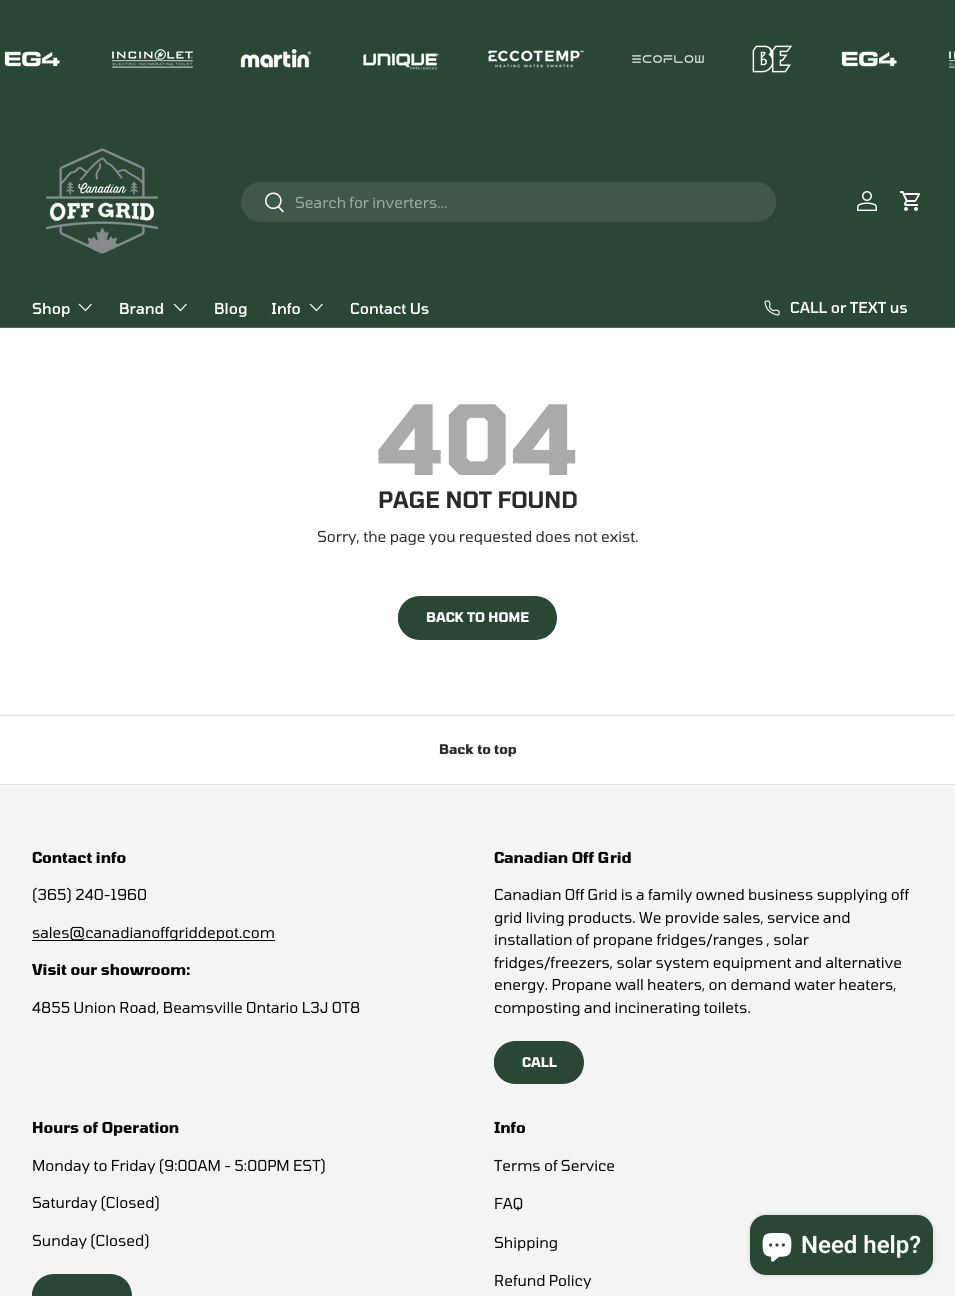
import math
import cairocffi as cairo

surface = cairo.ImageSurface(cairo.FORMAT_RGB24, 955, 1296)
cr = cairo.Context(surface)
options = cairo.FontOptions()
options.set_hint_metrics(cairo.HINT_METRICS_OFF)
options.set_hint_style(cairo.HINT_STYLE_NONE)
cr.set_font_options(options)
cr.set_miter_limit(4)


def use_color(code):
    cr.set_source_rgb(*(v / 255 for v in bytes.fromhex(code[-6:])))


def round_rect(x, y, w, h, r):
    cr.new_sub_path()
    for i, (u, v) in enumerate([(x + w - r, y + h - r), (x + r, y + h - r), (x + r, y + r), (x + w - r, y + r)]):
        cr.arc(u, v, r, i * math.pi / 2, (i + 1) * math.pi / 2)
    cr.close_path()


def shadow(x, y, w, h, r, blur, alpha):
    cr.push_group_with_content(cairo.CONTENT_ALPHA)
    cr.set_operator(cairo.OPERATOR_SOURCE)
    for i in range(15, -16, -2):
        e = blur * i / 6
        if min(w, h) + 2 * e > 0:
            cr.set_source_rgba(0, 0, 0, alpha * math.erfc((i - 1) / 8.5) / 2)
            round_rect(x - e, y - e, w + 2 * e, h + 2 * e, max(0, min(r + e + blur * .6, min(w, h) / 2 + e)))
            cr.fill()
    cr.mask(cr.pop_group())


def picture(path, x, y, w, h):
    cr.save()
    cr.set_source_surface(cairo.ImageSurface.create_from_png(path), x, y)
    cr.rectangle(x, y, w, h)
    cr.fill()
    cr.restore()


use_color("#ffffff")
cr.paint()
use_color("#2a4735")
cr.rectangle(0, 0, 955, 327)
cr.fill()
picture("img1.png", 4, 51, 56, 16)
picture("img2.png", 111, 49, 82, 19)
picture("img3.png", 240, 49, 72, 19)
picture("img4.png", 362, 53, 78, 17)
picture("img5.png", 488, 50, 96, 18)
picture("img6.png", 632, 55, 72, 8)
picture("img7.png", 752, 45, 41, 28)
picture("img1.png", 841, 51, 56, 16)
picture("img8.png", 948, 51, 7, 17)
use_color("#4a6353")
cr.rectangle(0, 327, 955, 1)
cr.fill()
picture("img9.png", 46, 148, 112, 106)
use_color("#3f5949")
round_rect(241, 182, 535, 40, 20)
cr.fill()
picture("img10.png", 265, 192, 19, 21)
cr.select_font_face("Tomorrow")
cr.set_font_size(15)
use_color("#9faca4")
cr.move_to(295, 208)
cr.show_text("Search for inverters...")
picture("img11.png", 857, 191, 20, 20)
picture("img12.png", 900, 191, 20, 20)
cr.select_font_face("Tomorrow Medium")
use_color("#ffffff")
cr.move_to(32, 314)
cr.show_text("Shop")
cr.new_path()
cr.move_to(91.5, 304)
cr.line_to(85.5, 310.5)
cr.line_to(79, 304)
cr.set_line_width(1.2)
cr.stroke()
cr.move_to(119, 314)
cr.show_text("Brand")
cr.new_path()
cr.move_to(186.5, 304)
cr.line_to(180.5, 310.5)
cr.line_to(174, 304)
cr.stroke()
cr.move_to(214, 314)
cr.show_text("Blog")
cr.move_to(271, 314)
cr.show_text("Info")
cr.new_path()
cr.move_to(322.5, 304)
cr.line_to(316.5, 310.5)
cr.line_to(310, 304)
cr.stroke()
cr.move_to(350, 314)
cr.show_text("Contact Us")
picture("img13.png", 764, 300, 16, 16)
cr.move_to(790, 313)
cr.show_text("CALL or TEXT us")
cr.select_font_face("Tomorrow", cairo.FONT_SLANT_NORMAL, cairo.FONT_WEIGHT_BOLD)
cr.set_font_size(96)
use_color("#aaaaaa")
cr.move_to(376, 475)
cr.show_text("404")
cr.select_font_face("Tomorrow SemiBold")
cr.set_font_size(22.5)
use_color("#2a2b2a")
cr.move_to(378, 508)
cr.show_text("PAGE NOT FOUND")
cr.select_font_face("Tomorrow")
cr.set_font_size(15)
cr.move_to(317, 542)
cr.show_text("Sorry, the page you requested does not exist.")
cr.save()
round_rect(398, 596, 159, 44, 22)
cr.clip()
gradient = cairo.LinearGradient(99, 562, 546, 674)
gradient.add_color_stop_rgba(0.6, 0.318, 0.424, 0.353, 1)
gradient.add_color_stop_rgba(0.6, 0.165, 0.278, 0.208, 1)
gradient.add_color_stop_rgba(1, 0.165, 0.278, 0.208, 1)
cr.set_source(gradient)
cr.rectangle(398, 598, 157, 40)
cr.fill()
cr.restore()
round_rect(399, 597, 157, 42, 21)
use_color("#2a4735")
cr.set_line_width(2)
cr.stroke()
cr.select_font_face("Tomorrow", cairo.FONT_SLANT_NORMAL, cairo.FONT_WEIGHT_BOLD)
cr.set_font_size(13.25)
use_color("#ffffff")
cr.move_to(426, 622)
cr.show_text("BACK TO HOME")
use_color("#dfdfdf")
cr.rectangle(0, 715, 955, 1)
cr.fill()
cr.rectangle(0, 784, 955, 1)
cr.fill()
use_color("#2a2b2a")
cr.move_to(439, 754)
cr.show_text("Back to top")
use_color("#f4f4f4")
cr.rectangle(0, 785, 955, 511)
cr.fill()
cr.set_font_size(15)
use_color("#070707")
cr.move_to(32, 863)
cr.show_text("Contact info")
cr.select_font_face("Tomorrow")
cr.move_to(32, 900)
cr.show_text("(365) 240-1960")
cr.rectangle(32, 940, 243, 1)
cr.fill()
cr.move_to(32, 938)
cr.show_text("sales@canadianoffgriddepot.com")
cr.select_font_face("Tomorrow", cairo.FONT_SLANT_NORMAL, cairo.FONT_WEIGHT_BOLD)
cr.move_to(32, 975)
cr.show_text("Visit our showroom:")
cr.select_font_face("Tomorrow")
cr.move_to(32, 1013)
cr.show_text("4855 Union Road, Beamsville Ontario L3J 0T8")
cr.select_font_face("Tomorrow", cairo.FONT_SLANT_NORMAL, cairo.FONT_WEIGHT_BOLD)
cr.move_to(494, 863)
cr.show_text("Canadian Off Grid")
cr.select_font_face("Tomorrow")
cr.move_to(494, 900)
cr.show_text("Canadian Off Grid is a family owned business supplying off")
cr.move_to(494, 923)
cr.show_text("grid living products. We provide sales, service and")
cr.move_to(494, 945)
cr.show_text("installation of propane fridges/ranges , solar")
cr.move_to(494, 968)
cr.show_text("fridges/freezers, solar system equipment and alternative")
cr.move_to(494, 990)
cr.show_text("energy. Propane wall heaters, on demand water heaters,")
cr.move_to(494, 1013)
cr.show_text("composting and incinerating toilets.")
cr.save()
round_rect(494, 1041, 90, 43, 21.5)
cr.clip()
gradient = cairo.LinearGradient(327, 1031, 579, 1094)
gradient.add_color_stop_rgba(0.6, 0.318, 0.424, 0.353, 1)
gradient.add_color_stop_rgba(0.6, 0.165, 0.278, 0.208, 1)
gradient.add_color_stop_rgba(1, 0.165, 0.278, 0.208, 1)
cr.set_source(gradient)
cr.rectangle(494, 1043, 88, 39)
cr.fill()
cr.restore()
round_rect(495, 1042, 88, 41, 20.5)
use_color("#2a4735")
cr.stroke()
cr.select_font_face("Tomorrow", cairo.FONT_SLANT_NORMAL, cairo.FONT_WEIGHT_BOLD)
cr.set_font_size(13.25)
use_color("#ffffff")
cr.move_to(522, 1067)
cr.show_text("CALL")
cr.set_font_size(15)
use_color("#070707")
cr.move_to(32, 1133)
cr.show_text("Hours of Operation")
cr.select_font_face("Tomorrow")
cr.move_to(32, 1171)
cr.show_text("Monday to Friday (9:00AM - 5:00PM EST)")
cr.move_to(32, 1208)
cr.show_text("Saturday (Closed)")
cr.move_to(32, 1246)
cr.show_text("Sunday (Closed)")
cr.save()
round_rect(32, 1274, 100, 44, 22)
cr.clip()
gradient = cairo.LinearGradient(-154, 1261, 126, 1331)
gradient.add_color_stop_rgba(0.6, 0.318, 0.424, 0.353, 1)
gradient.add_color_stop_rgba(0.6, 0.165, 0.278, 0.208, 1)
gradient.add_color_stop_rgba(1, 0.165, 0.278, 0.208, 1)
cr.set_source(gradient)
cr.rectangle(32, 1276, 98, 20)
cr.fill()
cr.restore()
round_rect(33, 1275, 98, 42, 21)
use_color("#2a4735")
cr.stroke()
cr.select_font_face("Tomorrow", cairo.FONT_SLANT_NORMAL, cairo.FONT_WEIGHT_BOLD)
use_color("#070707")
cr.move_to(494, 1133)
cr.show_text("Info")
cr.select_font_face("Tomorrow")
cr.move_to(494, 1171)
cr.show_text("Terms of Service")
cr.move_to(494, 1209)
cr.show_text("FAQ")
cr.move_to(494, 1248)
cr.show_text("Shipping")
cr.move_to(494, 1286)
cr.show_text("Refund Policy")
use_color("#000000")
shadow(750, 1215, 183, 60, 16, 2.5, 0.15)
use_color("#2a4735")
round_rect(750, 1215, 183, 60, 16)
cr.fill()
picture("img14.png", 762, 1233, 30, 29)
cr.select_font_face("Roboto SemiBold")
cr.set_font_size(24)
use_color("#ffffff")
cr.move_to(801, 1253)
cr.show_text("Need help?")
surface.write_to_png("result.png")
